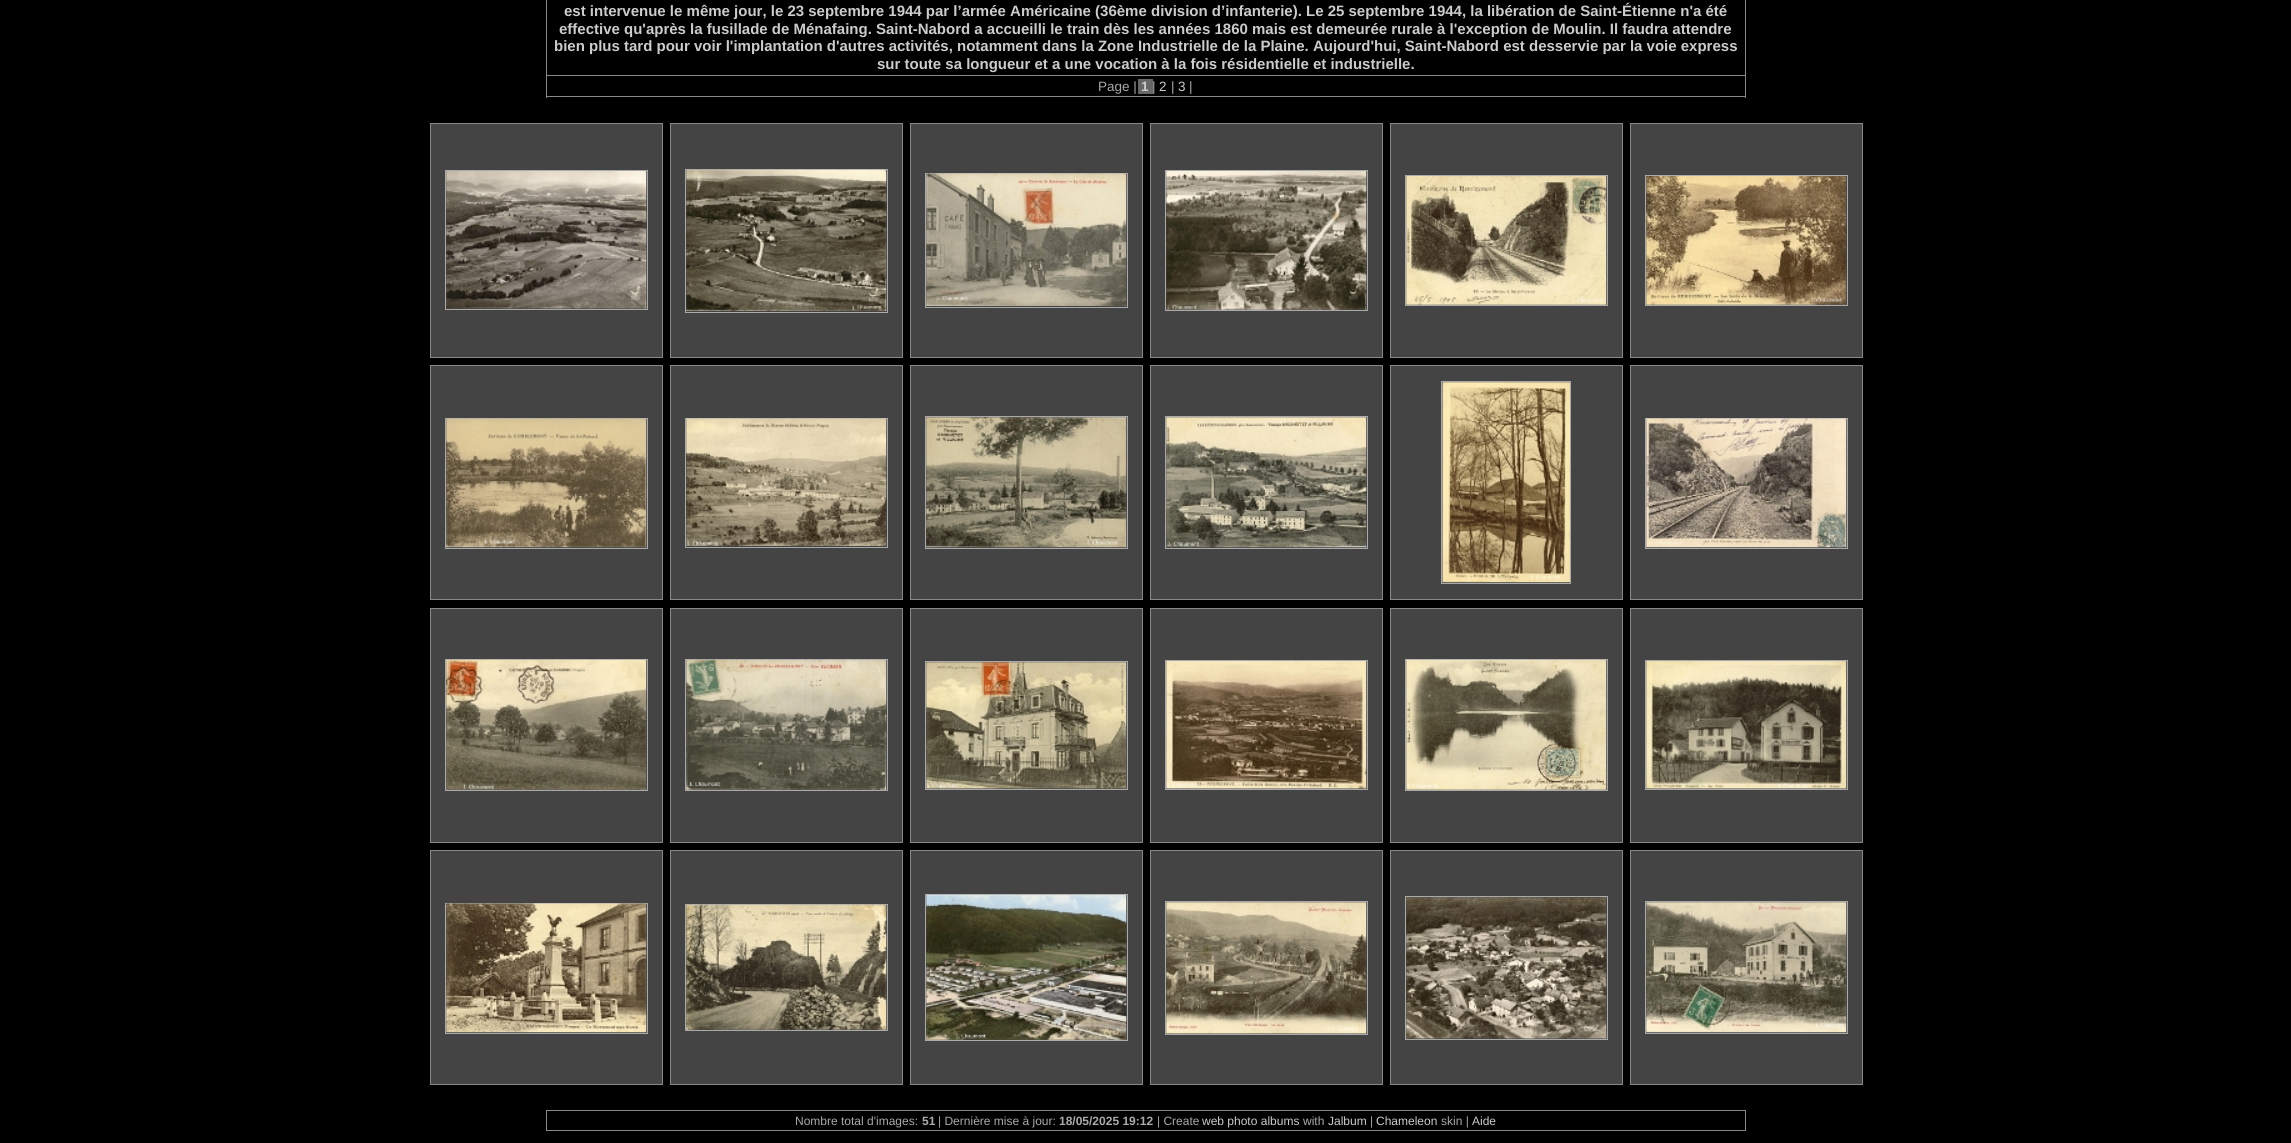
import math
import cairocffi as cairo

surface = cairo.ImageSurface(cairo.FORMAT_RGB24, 2291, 1143)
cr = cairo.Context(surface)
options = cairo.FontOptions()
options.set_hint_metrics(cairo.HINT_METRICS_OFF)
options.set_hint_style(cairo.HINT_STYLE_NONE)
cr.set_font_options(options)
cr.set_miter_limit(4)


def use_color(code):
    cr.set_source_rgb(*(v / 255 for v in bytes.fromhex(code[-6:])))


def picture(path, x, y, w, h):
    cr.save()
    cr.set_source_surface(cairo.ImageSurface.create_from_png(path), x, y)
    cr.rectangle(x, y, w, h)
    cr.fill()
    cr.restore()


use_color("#000000")
cr.paint()
use_color("#888888")
cr.rectangle(1745, 0, 1, 98)
cr.fill()
cr.rectangle(546, 96, 1200, 1)
cr.fill()
cr.rectangle(546, 0, 1, 98)
cr.fill()
cr.select_font_face("Liberation Sans", cairo.FONT_SLANT_NORMAL, cairo.FONT_WEIGHT_BOLD)
cr.set_font_size(15)
use_color("#cccccc")
cr.move_to(564, 16)
cr.show_text("est intervenue le même jour, le 23 septembre 1944 par l’armée Américaine (36ème division d’infanterie). Le 25 septembre 1944, la libération de Saint-Étienne n'a été")
cr.move_to(559, 34)
cr.show_text("effective qu'après la fusillade de Ménafaing. Saint-Nabord a accueilli le train dès les années 1860 mais est demeurée rurale à l'exception de Moulin. Il faudra attendre")
cr.move_to(554, 51)
cr.show_text("bien plus tard pour voir l'implantation d'autres activités, notamment dans la Zone Industrielle de la Plaine. Aujourd'hui, Saint-Nabord est desservie par la voie express")
cr.move_to(877, 69)
cr.show_text("sur toute sa longueur et a une vocation à la fois résidentielle et industrielle.")
use_color("#888888")
cr.rectangle(546, 75, 1200, 1)
cr.fill()
cr.select_font_face("Liberation Sans")
cr.set_font_size(13.5)
use_color("#aaaaaa")
cr.move_to(1098, 91)
cr.show_text("Page |")
use_color("#666666")
cr.rectangle(1138, 79, 15, 15)
cr.fill()
cr.select_font_face("Liberation Sans", cairo.FONT_SLANT_NORMAL, cairo.FONT_WEIGHT_BOLD)
use_color("#cccccc")
cr.move_to(1141, 91)
cr.show_text("1")
cr.select_font_face("Liberation Sans")
use_color("#aaaaaa")
cr.move_to(1152, 91)
cr.show_text("|")
use_color("#cccccc")
cr.move_to(1159, 91)
cr.show_text("2")
use_color("#aaaaaa")
cr.move_to(1171, 91)
cr.show_text("|")
use_color("#cccccc")
cr.move_to(1178, 91)
cr.show_text("3")
use_color("#aaaaaa")
cr.move_to(1189, 91)
cr.show_text("|")
use_color("#444444")
cr.rectangle(430.5, 123.5, 232, 234)
cr.fill_preserve()
use_color("#888888")
cr.set_line_width(1)
cr.stroke()
cr.rectangle(445.5, 170.5, 202, 139)
use_color("#aaaaaa")
cr.stroke()
picture("img1.png", 446, 171, 201, 138)
use_color("#444444")
cr.rectangle(670.5, 123.5, 232, 234)
cr.fill_preserve()
use_color("#888888")
cr.stroke()
cr.rectangle(685.5, 169.5, 202, 143)
use_color("#aaaaaa")
cr.stroke()
picture("img2.png", 686, 169, 201, 142)
use_color("#444444")
cr.rectangle(910.5, 123.5, 232, 234)
cr.fill_preserve()
use_color("#888888")
cr.stroke()
cr.rectangle(925.5, 173.5, 202, 134)
use_color("#aaaaaa")
cr.stroke()
picture("img3.png", 926, 173, 201, 133)
use_color("#444444")
cr.rectangle(1150.5, 123.5, 232, 234)
cr.fill_preserve()
use_color("#888888")
cr.stroke()
cr.rectangle(1165.5, 170.5, 202, 140)
use_color("#aaaaaa")
cr.stroke()
picture("img4.png", 1166, 171, 201, 139)
use_color("#444444")
cr.rectangle(1390.5, 123.5, 232, 234)
cr.fill_preserve()
use_color("#888888")
cr.stroke()
cr.rectangle(1405.5, 175.5, 202, 130)
use_color("#aaaaaa")
cr.stroke()
picture("img5.png", 1406, 176, 201, 129)
use_color("#444444")
cr.rectangle(1630.5, 123.5, 232, 234)
cr.fill_preserve()
use_color("#888888")
cr.stroke()
cr.rectangle(1645.5, 175.5, 202, 130)
use_color("#aaaaaa")
cr.stroke()
picture("img6.png", 1646, 176, 201, 129)
use_color("#444444")
cr.rectangle(430.5, 365.5, 232, 234)
cr.fill_preserve()
use_color("#888888")
cr.stroke()
cr.rectangle(445.5, 418.5, 202, 130)
use_color("#aaaaaa")
cr.stroke()
picture("img7.png", 446, 418, 201, 130)
use_color("#444444")
cr.rectangle(670.5, 365.5, 232, 234)
cr.fill_preserve()
use_color("#888888")
cr.stroke()
cr.rectangle(685.5, 418.5, 202, 129)
use_color("#aaaaaa")
cr.stroke()
picture("img8.png", 686, 418, 201, 128)
use_color("#444444")
cr.rectangle(910.5, 365.5, 232, 234)
cr.fill_preserve()
use_color("#888888")
cr.stroke()
cr.rectangle(925.5, 416.5, 202, 132)
use_color("#aaaaaa")
cr.stroke()
picture("img9.png", 926, 417, 201, 131)
use_color("#444444")
cr.rectangle(1150.5, 365.5, 232, 234)
cr.fill_preserve()
use_color("#888888")
cr.stroke()
cr.rectangle(1165.5, 416.5, 202, 132)
use_color("#aaaaaa")
cr.stroke()
picture("img10.png", 1166, 417, 201, 131)
use_color("#444444")
cr.rectangle(1390.5, 365.5, 232, 234)
cr.fill_preserve()
use_color("#888888")
cr.stroke()
cr.rectangle(1441.5, 381.5, 129, 202)
use_color("#aaaaaa")
cr.stroke()
picture("img11.png", 1442, 382, 128, 201)
use_color("#444444")
cr.rectangle(1630.5, 365.5, 232, 234)
cr.fill_preserve()
use_color("#888888")
cr.stroke()
cr.rectangle(1645.5, 418.5, 202, 130)
use_color("#aaaaaa")
cr.stroke()
picture("img12.png", 1646, 418, 201, 130)
use_color("#444444")
cr.rectangle(430.5, 608.5, 232, 234)
cr.fill_preserve()
use_color("#888888")
cr.stroke()
cr.rectangle(445.5, 659.5, 202, 131)
use_color("#aaaaaa")
cr.stroke()
picture("img13.png", 446, 659, 201, 131)
use_color("#444444")
cr.rectangle(670.5, 608.5, 232, 234)
cr.fill_preserve()
use_color("#888888")
cr.stroke()
cr.rectangle(685.5, 659.5, 202, 131)
use_color("#aaaaaa")
cr.stroke()
picture("img14.png", 686, 659, 201, 131)
use_color("#444444")
cr.rectangle(910.5, 608.5, 232, 234)
cr.fill_preserve()
use_color("#888888")
cr.stroke()
cr.rectangle(925.5, 661.5, 202, 128)
use_color("#aaaaaa")
cr.stroke()
picture("img15.png", 926, 662, 201, 127)
use_color("#444444")
cr.rectangle(1150.5, 608.5, 232, 234)
cr.fill_preserve()
use_color("#888888")
cr.stroke()
cr.rectangle(1165.5, 660.5, 202, 129)
use_color("#aaaaaa")
cr.stroke()
picture("img16.png", 1166, 661, 201, 128)
use_color("#444444")
cr.rectangle(1390.5, 608.5, 232, 234)
cr.fill_preserve()
use_color("#888888")
cr.stroke()
cr.rectangle(1405.5, 659.5, 202, 131)
use_color("#aaaaaa")
cr.stroke()
picture("img17.png", 1406, 659, 201, 131)
use_color("#444444")
cr.rectangle(1630.5, 608.5, 232, 234)
cr.fill_preserve()
use_color("#888888")
cr.stroke()
cr.rectangle(1645.5, 660.5, 202, 129)
use_color("#aaaaaa")
cr.stroke()
picture("img18.png", 1646, 661, 201, 128)
use_color("#444444")
cr.rectangle(430.5, 850.5, 232, 234)
cr.fill_preserve()
use_color("#888888")
cr.stroke()
cr.rectangle(445.5, 903.5, 202, 130)
use_color("#aaaaaa")
cr.stroke()
picture("img19.png", 446, 903, 201, 130)
use_color("#444444")
cr.rectangle(670.5, 850.5, 232, 234)
cr.fill_preserve()
use_color("#888888")
cr.stroke()
cr.rectangle(685.5, 904.5, 202, 126)
use_color("#aaaaaa")
cr.stroke()
picture("img20.png", 686, 904, 201, 126)
use_color("#444444")
cr.rectangle(910.5, 850.5, 232, 234)
cr.fill_preserve()
use_color("#888888")
cr.stroke()
cr.rectangle(925.5, 894.5, 202, 146)
use_color("#aaaaaa")
cr.stroke()
picture("img21.png", 926, 894, 201, 146)
use_color("#444444")
cr.rectangle(1150.5, 850.5, 232, 234)
cr.fill_preserve()
use_color("#888888")
cr.stroke()
cr.rectangle(1165.5, 901.5, 202, 133)
use_color("#aaaaaa")
cr.stroke()
picture("img22.png", 1166, 902, 201, 132)
use_color("#444444")
cr.rectangle(1390.5, 850.5, 232, 234)
cr.fill_preserve()
use_color("#888888")
cr.stroke()
cr.rectangle(1405.5, 896.5, 202, 143)
use_color("#aaaaaa")
cr.stroke()
picture("img23.png", 1406, 897, 201, 142)
use_color("#444444")
cr.rectangle(1630.5, 850.5, 232, 234)
cr.fill_preserve()
use_color("#888888")
cr.stroke()
cr.rectangle(1645.5, 901.5, 202, 132)
use_color("#aaaaaa")
cr.stroke()
picture("img24.png", 1646, 902, 201, 131)
use_color("#888888")
cr.rectangle(546, 1110, 1200, 1)
cr.fill()
cr.rectangle(1745, 1110, 1, 21)
cr.fill()
cr.rectangle(546, 1130, 1200, 1)
cr.fill()
cr.rectangle(546, 1110, 1, 21)
cr.fill()
cr.set_font_size(12)
use_color("#aaaaaa")
cr.move_to(795, 1125)
cr.show_text("Nombre total d'images:")
cr.select_font_face("Liberation Sans", cairo.FONT_SLANT_NORMAL, cairo.FONT_WEIGHT_BOLD)
cr.move_to(922, 1125)
cr.show_text("51")
cr.select_font_face("Liberation Sans")
cr.move_to(938, 1125)
cr.show_text("| Dernière mise à jour:")
cr.select_font_face("Liberation Sans", cairo.FONT_SLANT_NORMAL, cairo.FONT_WEIGHT_BOLD)
cr.move_to(1059, 1125)
cr.show_text("18/05/2025 19:12")
cr.select_font_face("Liberation Sans")
cr.move_to(1157, 1125)
cr.show_text("| Create")
use_color("#cccccc")
cr.move_to(1202, 1125)
cr.show_text("web photo albums")
use_color("#aaaaaa")
cr.move_to(1303, 1125)
cr.show_text("with")
use_color("#cccccc")
cr.move_to(1328, 1125)
cr.show_text("Jalbum")
use_color("#aaaaaa")
cr.move_to(1370, 1125)
cr.show_text("|")
use_color("#cccccc")
cr.move_to(1376, 1125)
cr.show_text("Chameleon")
use_color("#aaaaaa")
cr.move_to(1441, 1125)
cr.show_text("skin |")
use_color("#cccccc")
cr.move_to(1472, 1125)
cr.show_text("Aide")
surface.write_to_png("result.png")
